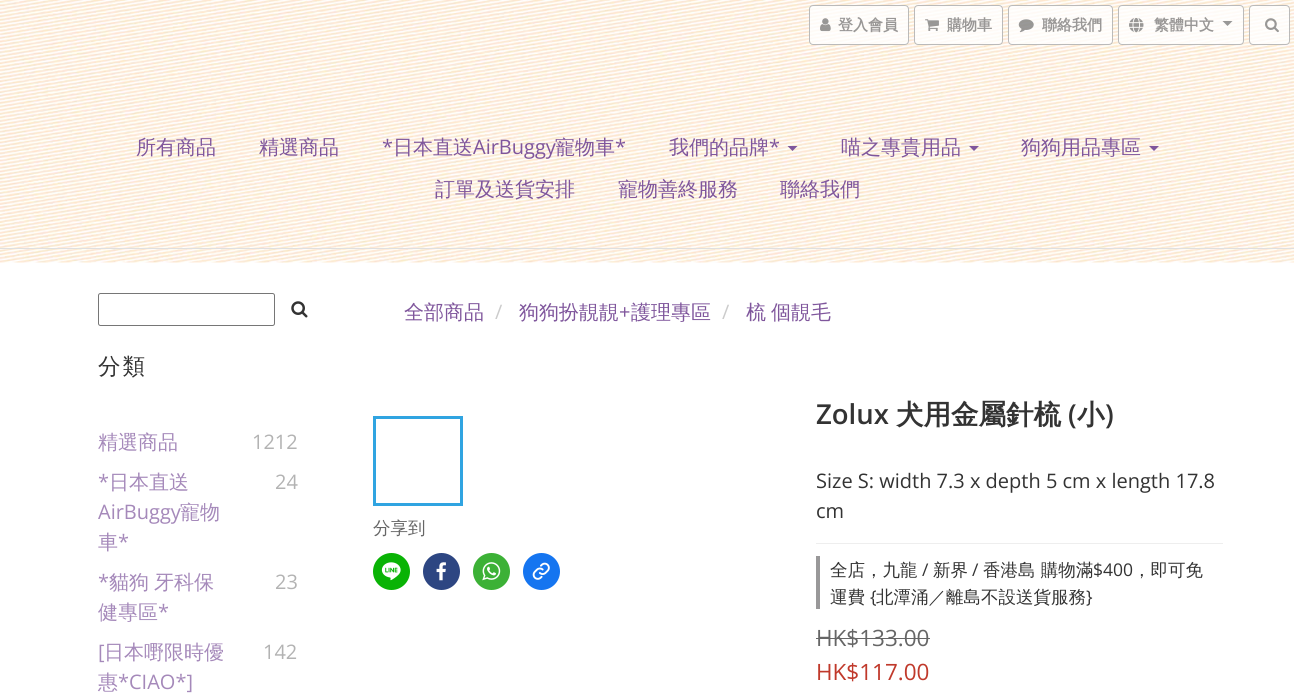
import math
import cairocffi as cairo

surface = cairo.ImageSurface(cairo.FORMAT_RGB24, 1294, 693)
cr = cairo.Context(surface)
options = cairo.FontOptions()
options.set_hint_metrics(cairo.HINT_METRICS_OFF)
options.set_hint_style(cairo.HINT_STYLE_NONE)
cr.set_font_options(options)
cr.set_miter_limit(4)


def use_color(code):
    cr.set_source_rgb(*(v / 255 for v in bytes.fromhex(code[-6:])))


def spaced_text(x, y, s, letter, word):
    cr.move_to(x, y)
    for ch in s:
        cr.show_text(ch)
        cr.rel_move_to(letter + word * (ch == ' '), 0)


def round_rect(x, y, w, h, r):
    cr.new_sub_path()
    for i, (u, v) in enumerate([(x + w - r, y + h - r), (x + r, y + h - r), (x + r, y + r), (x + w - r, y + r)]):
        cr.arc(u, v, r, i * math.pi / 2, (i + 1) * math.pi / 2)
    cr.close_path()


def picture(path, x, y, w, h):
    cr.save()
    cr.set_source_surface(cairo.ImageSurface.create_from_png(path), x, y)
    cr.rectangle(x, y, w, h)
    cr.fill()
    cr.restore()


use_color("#ffffff")
cr.paint()
picture("img1.png", 0, 0, 1294, 263)
cr.set_source_rgba(1, 1, 1, 0.8)
round_rect(809, 5, 100, 40, 4)
cr.fill()
round_rect(809.5, 5.5, 99, 39, 3.5)
cr.set_source_rgba(0.667, 0.667, 0.667, 0.8)
cr.set_line_width(1)
cr.stroke()
picture("img2.png", 820, 18, 11, 14)
cr.select_font_face("WenQuanYi Zen Hei", cairo.FONT_SLANT_NORMAL, cairo.FONT_WEIGHT_BOLD)
cr.set_font_size(15)
use_color("#999796")
cr.move_to(838, 30)
cr.show_text("登入會員")
cr.set_source_rgba(1, 1, 1, 0.8)
round_rect(914, 5, 89, 40, 4)
cr.fill()
round_rect(914.5, 5.5, 88, 39, 3.5)
cr.set_source_rgba(0.667, 0.667, 0.667, 0.8)
cr.stroke()
picture("img3.png", 925, 19, 14, 12)
use_color("#999796")
cr.move_to(947, 30)
cr.show_text("購物車")
cr.set_source_rgba(1, 1, 1, 0.8)
round_rect(1008, 5, 105, 40, 4)
cr.fill()
round_rect(1008.5, 5.5, 104, 39, 3.5)
cr.set_source_rgba(0.667, 0.667, 0.667, 0.8)
cr.stroke()
picture("img4.png", 1018, 19, 16, 14)
use_color("#999796")
cr.move_to(1042, 30)
cr.show_text("聯絡我們")
cr.set_source_rgba(1, 1, 1, 0.8)
round_rect(1118, 5, 126, 40, 4)
cr.fill()
round_rect(1118.5, 5.5, 125, 39, 3.5)
cr.set_source_rgba(0.667, 0.667, 0.667, 0.8)
cr.stroke()
picture("img5.png", 1129, 18, 15, 15)
use_color("#999796")
cr.move_to(1154, 30)
cr.show_text("繁體中文")
cr.set_source_rgba(0, 0, 0, 0.4)
cr.new_path()
cr.move_to(1222.5, 21)
cr.line_to(1232.5, 21)
cr.line_to(1227.5, 26)
cr.close_path()
cr.fill()
cr.set_source_rgba(1, 1, 1, 0.8)
round_rect(1249, 5, 41, 40, 4)
cr.fill()
round_rect(1249.5, 5.5, 40, 39, 3.5)
cr.set_source_rgba(0.667, 0.667, 0.667, 0.8)
cr.stroke()
picture("img6.png", 1265, 18, 14, 15)
use_color("#e0e0e0")
cr.rectangle(0, 248, 1294, 1)
cr.fill()
cr.select_font_face("WenQuanYi Zen Hei Medium")
cr.set_font_size(20)
use_color("#7f569c")
cr.move_to(136, 154)
cr.show_text("所有商品")
cr.move_to(259, 154)
cr.show_text("精選商品")
cr.select_font_face("Open Sans")
cr.move_to(382, 154)
cr.show_text("*")
cr.select_font_face("WenQuanYi Zen Hei Medium")
cr.move_to(393, 154)
cr.show_text("日本直送")
cr.select_font_face("Open Sans")
cr.move_to(473, 154)
cr.show_text("AirBuggy")
cr.select_font_face("WenQuanYi Zen Hei Medium")
cr.move_to(555, 154)
cr.show_text("寵物車")
cr.select_font_face("Open Sans")
cr.move_to(615, 154)
cr.show_text("*")
cr.select_font_face("WenQuanYi Zen Hei Medium")
cr.move_to(669, 154)
cr.show_text("我們的品牌")
cr.select_font_face("Open Sans")
cr.move_to(769, 154)
cr.show_text("*")
cr.new_path()
cr.move_to(787.5, 146)
cr.line_to(797.5, 146)
cr.line_to(792.5, 151)
cr.close_path()
cr.fill()
cr.select_font_face("WenQuanYi Zen Hei Medium")
cr.move_to(841, 154)
cr.show_text("喵之專貴用品")
cr.new_path()
cr.move_to(969, 146)
cr.line_to(979, 146)
cr.line_to(974, 151)
cr.close_path()
cr.fill()
cr.move_to(1021, 154)
cr.show_text("狗狗用品專區")
cr.new_path()
cr.move_to(1149, 146)
cr.line_to(1159, 146)
cr.line_to(1154, 151)
cr.close_path()
cr.fill()
cr.move_to(435, 196)
cr.show_text("訂單及送貨安排")
cr.move_to(618, 196)
cr.show_text("寵物善終服務")
cr.move_to(780, 196)
cr.show_text("聯絡我們")
round_rect(98.5, 293.5, 176, 32, 2)
use_color("#767676")
cr.stroke()
picture("img7.png", 291, 301, 17, 17)
cr.set_font_size(22.5)
use_color("#333333")
spaced_text(98, 374, "分類", 2, 0)
cr.set_font_size(20)
use_color("#a589ba")
cr.move_to(98, 449)
cr.show_text("精選商品")
cr.select_font_face("Open Sans")
use_color("#b3b3b3")
cr.move_to(252, 449)
cr.show_text("1212")
use_color("#a589ba")
cr.move_to(98, 489)
cr.show_text("*")
cr.select_font_face("WenQuanYi Zen Hei Medium")
cr.move_to(109, 489)
cr.show_text("日本直送")
cr.select_font_face("Open Sans")
cr.move_to(98, 519)
cr.show_text("AirBuggy")
cr.select_font_face("WenQuanYi Zen Hei Medium")
cr.move_to(180, 519)
cr.show_text("寵物")
cr.move_to(98, 549)
cr.show_text("車")
cr.select_font_face("Open Sans")
cr.move_to(118, 549)
cr.show_text("*")
use_color("#b3b3b3")
cr.move_to(275, 489)
cr.show_text("24")
use_color("#a589ba")
cr.move_to(98, 589)
cr.show_text("*")
cr.select_font_face("WenQuanYi Zen Hei Medium")
spaced_text(109, 589, "貓狗 牙科保", 0, -1)
cr.move_to(98, 619)
cr.show_text("健專區")
cr.select_font_face("Open Sans")
cr.move_to(158, 619)
cr.show_text("*")
use_color("#b3b3b3")
cr.move_to(275, 589)
cr.show_text("23")
use_color("#a589ba")
cr.move_to(98, 659)
cr.show_text("[")
cr.select_font_face("WenQuanYi Zen Hei Medium")
cr.move_to(104, 659)
cr.show_text("日本嘢限時優")
cr.move_to(98, 689)
cr.show_text("惠")
cr.select_font_face("Open Sans")
cr.move_to(118, 689)
cr.show_text("*CIAO*]")
use_color("#b3b3b3")
cr.move_to(263, 659)
cr.show_text("142")
cr.select_font_face("WenQuanYi Zen Hei Medium")
use_color("#7f569c")
cr.move_to(404, 319)
cr.show_text("全部商品")
cr.select_font_face("Open Sans")
use_color("#cccccc")
cr.move_to(495, 319)
cr.show_text("/")
cr.select_font_face("WenQuanYi Zen Hei Medium")
use_color("#7f569c")
cr.move_to(519, 319)
cr.show_text("狗狗扮靚靚")
cr.select_font_face("Open Sans")
cr.move_to(619, 319)
cr.show_text("+")
cr.select_font_face("WenQuanYi Zen Hei Medium")
cr.move_to(631, 319)
cr.show_text("護理專區")
cr.select_font_face("Open Sans")
use_color("#cccccc")
cr.move_to(722, 319)
cr.show_text("/")
cr.select_font_face("WenQuanYi Zen Hei Medium")
use_color("#7f569c")
spaced_text(746, 319, "梳 個靚毛", 0, -1)
cr.rectangle(374.5, 417.5, 87, 87)
use_color("#30a4e1")
cr.set_line_width(3)
cr.stroke()
cr.set_font_size(17.5)
use_color("#666666")
cr.move_to(373, 534)
cr.show_text("分享到")
use_color("#09b305")
cr.new_path()
cr.arc(391.5, 571.5, 18.5, 0, 2 * math.pi)
cr.fill()
picture("img8.png", 381, 562, 20, 19)
use_color("#2d4682")
cr.arc(441.5, 571.5, 18.5, 0, 2 * math.pi)
cr.fill()
picture("img9.png", 436, 562, 10, 19)
use_color("#3cb136")
cr.arc(491.5, 571.5, 18.5, 0, 2 * math.pi)
cr.fill()
picture("img10.png", 482, 562, 19, 19)
use_color("#1575f0")
cr.arc(541.5, 571.5, 18.5, 0, 2 * math.pi)
cr.fill()
picture("img11.png", 532, 562, 18, 18)
cr.select_font_face("Open Sans SemiBold")
cr.set_font_size(27.5)
use_color("#333333")
cr.move_to(816, 424)
cr.show_text("Zolux")
cr.select_font_face("WenQuanYi Zen Hei", cairo.FONT_SLANT_NORMAL, cairo.FONT_WEIGHT_BOLD)
cr.move_to(896, 424)
cr.show_text("犬用金屬針梳")
cr.select_font_face("Open Sans SemiBold")
cr.move_to(1068, 424)
cr.show_text("(")
cr.select_font_face("WenQuanYi Zen Hei", cairo.FONT_SLANT_NORMAL, cairo.FONT_WEIGHT_BOLD)
cr.move_to(1077, 424)
cr.show_text("小")
cr.select_font_face("Open Sans SemiBold")
cr.move_to(1105, 424)
cr.show_text(")")
cr.select_font_face("Open Sans")
cr.set_font_size(20)
cr.move_to(816, 488)
cr.show_text("Size S: width 7.3 x depth 5 cm x length 17.8")
cr.move_to(816, 518)
cr.show_text("cm")
use_color("#eeeeee")
cr.rectangle(816, 543, 407, 1)
cr.fill()
use_color("#999899")
cr.rectangle(816, 556, 4, 53)
cr.fill()
cr.select_font_face("WenQuanYi Zen Hei Medium")
cr.set_font_size(17.5)
use_color("#333333")
cr.move_to(830, 576)
cr.show_text("全店，九龍")
cr.select_font_face("Open Sans")
cr.move_to(922, 576)
cr.show_text("/")
cr.select_font_face("WenQuanYi Zen Hei Medium")
cr.move_to(933, 576)
cr.show_text("新界")
cr.select_font_face("Open Sans")
cr.move_to(972, 576)
cr.show_text("/")
cr.select_font_face("WenQuanYi Zen Hei Medium")
cr.move_to(983, 576)
cr.show_text("香港島 購物滿")
cr.select_font_face("Open Sans")
cr.move_to(1093, 576)
cr.show_text("$400")
cr.select_font_face("WenQuanYi Zen Hei Medium")
cr.move_to(1133, 576)
cr.show_text("，即可免")
cr.move_to(830, 603)
cr.show_text("運費")
cr.select_font_face("Open Sans")
cr.move_to(870, 603)
cr.show_text("{")
cr.select_font_face("WenQuanYi Zen Hei Medium")
cr.move_to(876, 603)
cr.show_text("北潭涌／離島不設送貨服務")
cr.select_font_face("Open Sans")
cr.move_to(1086, 603)
cr.show_text("}")
cr.set_font_size(22.5)
use_color("#666666")
cr.move_to(816, 646)
cr.show_text("HK$133.00")
cr.rectangle(816, 638, 114, 1)
cr.fill()
use_color("#c0392b")
cr.move_to(816, 680)
cr.show_text("HK$117.00")
surface.write_to_png("result.png")
